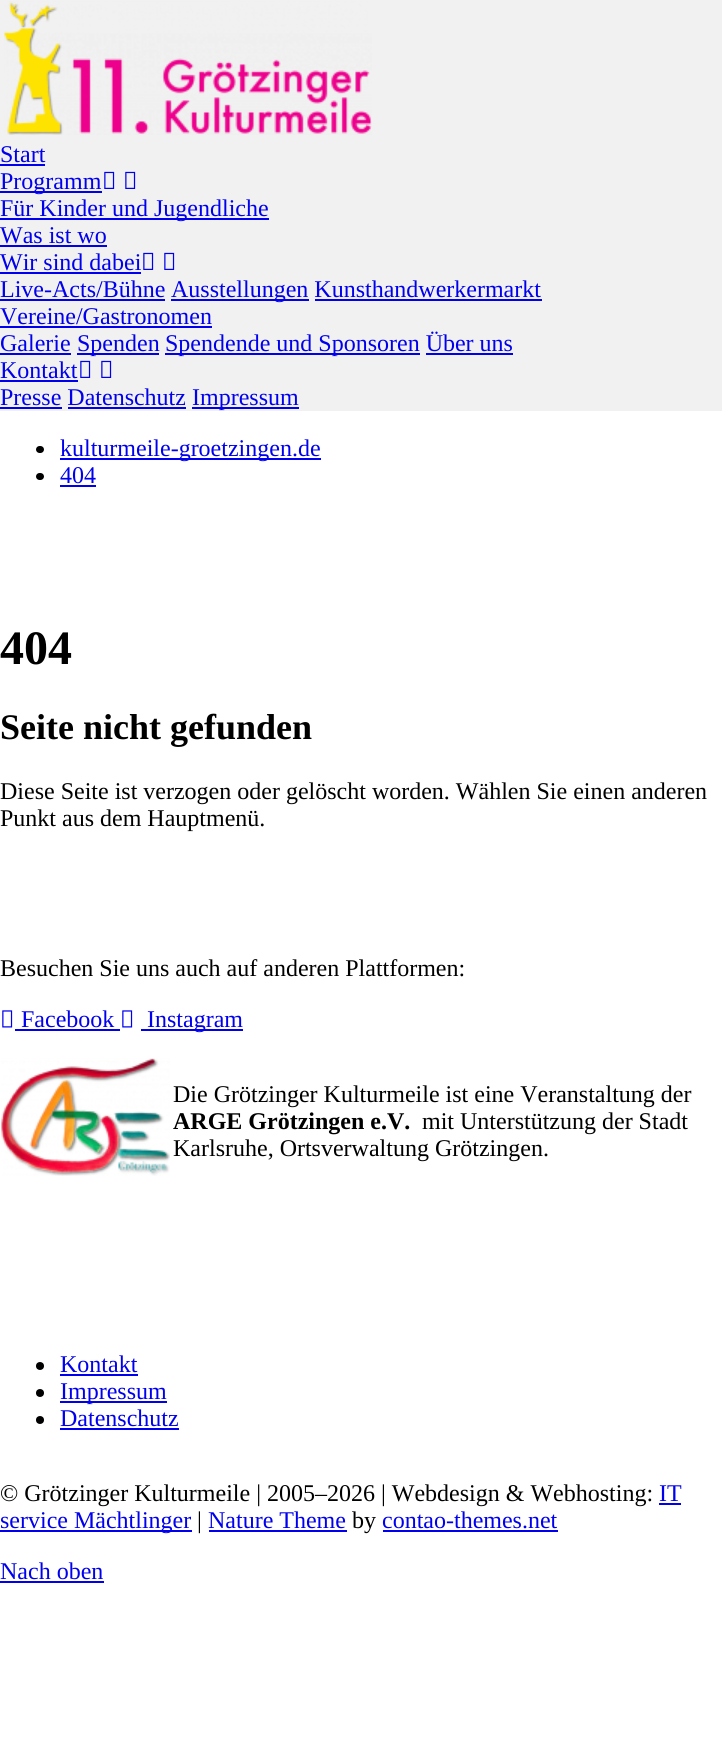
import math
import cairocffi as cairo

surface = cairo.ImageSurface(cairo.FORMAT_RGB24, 722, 1753)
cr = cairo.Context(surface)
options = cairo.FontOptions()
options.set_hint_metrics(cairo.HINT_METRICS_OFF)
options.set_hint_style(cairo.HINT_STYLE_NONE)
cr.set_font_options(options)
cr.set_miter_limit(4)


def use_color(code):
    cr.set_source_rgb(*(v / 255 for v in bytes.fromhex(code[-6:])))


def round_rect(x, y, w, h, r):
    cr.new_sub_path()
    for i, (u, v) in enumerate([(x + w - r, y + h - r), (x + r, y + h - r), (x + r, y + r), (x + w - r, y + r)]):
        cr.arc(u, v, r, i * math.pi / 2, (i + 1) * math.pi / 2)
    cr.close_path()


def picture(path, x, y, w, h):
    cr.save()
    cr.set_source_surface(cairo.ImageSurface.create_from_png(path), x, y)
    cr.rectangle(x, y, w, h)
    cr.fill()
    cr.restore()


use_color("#ffffff")
cr.paint()
use_color("#f1f1f1")
cr.rectangle(0, 0, 722, 411)
cr.fill()
picture("img1.png", 4, 1, 368, 134)
cr.select_font_face("Liberation Serif")
cr.set_font_size(24)
use_color("#0000ee")
cr.move_to(0, 162)
cr.show_text("Start")
cr.rectangle(0, 164, 45, 2)
cr.fill()
cr.rectangle(0, 191, 102, 2)
cr.fill()
cr.move_to(0, 189)
cr.show_text("Programm")
picture("img2.png", 104, 171, 11, 18)
picture("img2.png", 125, 171, 11, 18)
cr.rectangle(0, 218, 269, 2)
cr.fill()
cr.move_to(0, 216)
cr.show_text("Für Kinder und Jugendliche")
cr.move_to(0, 243)
cr.show_text("Was ist wo")
cr.rectangle(0, 245, 107, 2)
cr.fill()
cr.move_to(0, 270)
cr.show_text("Wir sind dabei")
cr.rectangle(0, 272, 141, 2)
cr.fill()
picture("img2.png", 143, 252, 11, 18)
picture("img2.png", 164, 252, 11, 18)
cr.move_to(0, 297)
cr.show_text("Live-Acts/Bühne")
cr.rectangle(0, 299, 165, 2)
cr.fill()
cr.rectangle(171, 299, 138, 2)
cr.fill()
cr.move_to(171, 297)
cr.show_text("Ausstellungen Kunsthandwerkermarkt")
cr.rectangle(315, 299, 227, 2)
cr.fill()
cr.move_to(0, 324)
cr.show_text("Vereine/Gastronomen")
cr.rectangle(0, 326, 212, 2)
cr.fill()
cr.move_to(0, 351)
cr.show_text("Galerie")
cr.rectangle(0, 353, 71, 2)
cr.fill()
cr.rectangle(77, 353, 82, 2)
cr.fill()
cr.move_to(77, 351)
cr.show_text("Spenden")
cr.rectangle(165, 353, 255, 2)
cr.fill()
cr.move_to(165, 351)
cr.show_text("Spendende und Sponsoren Über uns")
cr.rectangle(426, 353, 87, 2)
cr.fill()
cr.move_to(0, 378)
cr.show_text("Kontakt")
cr.rectangle(0, 380, 78, 2)
cr.fill()
picture("img2.png", 80, 360, 11, 18)
picture("img2.png", 101, 360, 11, 18)
cr.move_to(0, 405)
cr.show_text("Presse Datenschutz")
cr.rectangle(0, 407, 62, 2)
cr.fill()
cr.rectangle(192, 407, 107, 2)
cr.fill()
cr.move_to(192, 405)
cr.show_text("Impressum")
cr.rectangle(68, 407, 118, 2)
cr.fill()
use_color("#000000")
round_rect(36, 446, 8, 7, 3.5)
cr.fill()
use_color("#0000ee")
cr.rectangle(60, 458, 261, 2)
cr.fill()
cr.move_to(60, 456)
cr.show_text("kulturmeile-groetzingen.de")
use_color("#000000")
round_rect(36, 473, 8, 7, 3.5)
cr.fill()
use_color("#0000ee")
cr.move_to(60, 483)
cr.show_text("404")
cr.rectangle(60, 485, 36, 2)
cr.fill()
cr.select_font_face("Liberation Serif", cairo.FONT_SLANT_NORMAL, cairo.FONT_WEIGHT_BOLD)
cr.set_font_size(48)
use_color("#000000")
cr.move_to(0, 664)
cr.show_text("404")
cr.set_font_size(36)
cr.move_to(0, 739)
cr.show_text("Seite nicht gefunden")
cr.select_font_face("Liberation Serif")
cr.set_font_size(24)
cr.move_to(0, 799)
cr.show_text("Diese Seite ist verzogen oder gelöscht worden. Wählen Sie einen anderen")
cr.move_to(0, 826)
cr.show_text("Punkt aus dem Hauptmenü.")
cr.move_to(0, 976)
cr.show_text("Besuchen Sie uns auch auf anderen Plattformen:")
picture("img3.png", 2, 1010, 11, 18)
use_color("#0000ee")
cr.move_to(21, 1027)
cr.show_text("Facebook")
cr.rectangle(15, 1029, 105, 2)
cr.fill()
picture("img3.png", 122, 1010, 11, 18)
cr.rectangle(141, 1029, 102, 2)
cr.fill()
cr.move_to(147, 1027)
cr.show_text("Instagram")
picture("img4.png", 1, 1058, 169, 118)
use_color("#000000")
cr.move_to(173, 1102)
cr.show_text("Die Grötzinger Kulturmeile ist eine Veranstaltung der")
cr.select_font_face("Liberation Serif", cairo.FONT_SLANT_NORMAL, cairo.FONT_WEIGHT_BOLD)
cr.move_to(173, 1129)
cr.show_text("ARGE Grötzingen e.V.")
cr.select_font_face("Liberation Serif")
cr.move_to(422, 1129)
cr.show_text("mit Unterstützung der Stadt")
cr.move_to(173, 1156)
cr.show_text("Karlsruhe, Ortsverwaltung Grötzingen.")
cr.new_path()
cr.arc(40, 1366, 4, 0, 2 * math.pi)
cr.fill()
use_color("#0000ee")
cr.move_to(60, 1372)
cr.show_text("Kontakt")
cr.rectangle(60, 1374, 78, 2)
cr.fill()
use_color("#000000")
cr.arc(40, 1393, 4, 0, 2 * math.pi)
cr.fill()
use_color("#0000ee")
cr.rectangle(60, 1401, 107, 2)
cr.fill()
cr.move_to(60, 1399)
cr.show_text("Impressum")
use_color("#000000")
cr.new_path()
cr.arc(40, 1420, 4, 0, 2 * math.pi)
cr.fill()
use_color("#0000ee")
cr.move_to(60, 1426)
cr.show_text("Datenschutz")
cr.rectangle(60, 1428, 119, 2)
cr.fill()
use_color("#000000")
cr.move_to(0, 1501)
cr.show_text("© Grötzinger Kulturmeile | 2005–2026 | Webdesign & Webhosting:")
use_color("#0000ee")
cr.move_to(659, 1501)
cr.show_text("IT")
cr.rectangle(659, 1503, 22, 2)
cr.fill()
cr.rectangle(0, 1530, 192, 2)
cr.fill()
cr.move_to(0, 1528)
cr.show_text("service Mächtlinger")
use_color("#000000")
cr.move_to(197, 1528)
cr.show_text("|")
use_color("#0000ee")
cr.move_to(208, 1528)
cr.show_text("Nature Theme")
cr.rectangle(209, 1530, 138, 2)
cr.fill()
use_color("#000000")
cr.move_to(352, 1528)
cr.show_text("by")
use_color("#0000ee")
cr.move_to(382, 1528)
cr.show_text("contao-themes.net")
cr.rectangle(383, 1530, 175, 2)
cr.fill()
cr.move_to(0, 1579)
cr.show_text("Nach oben")
cr.rectangle(0, 1581, 104, 2)
cr.fill()
surface.write_to_png("result.png")
